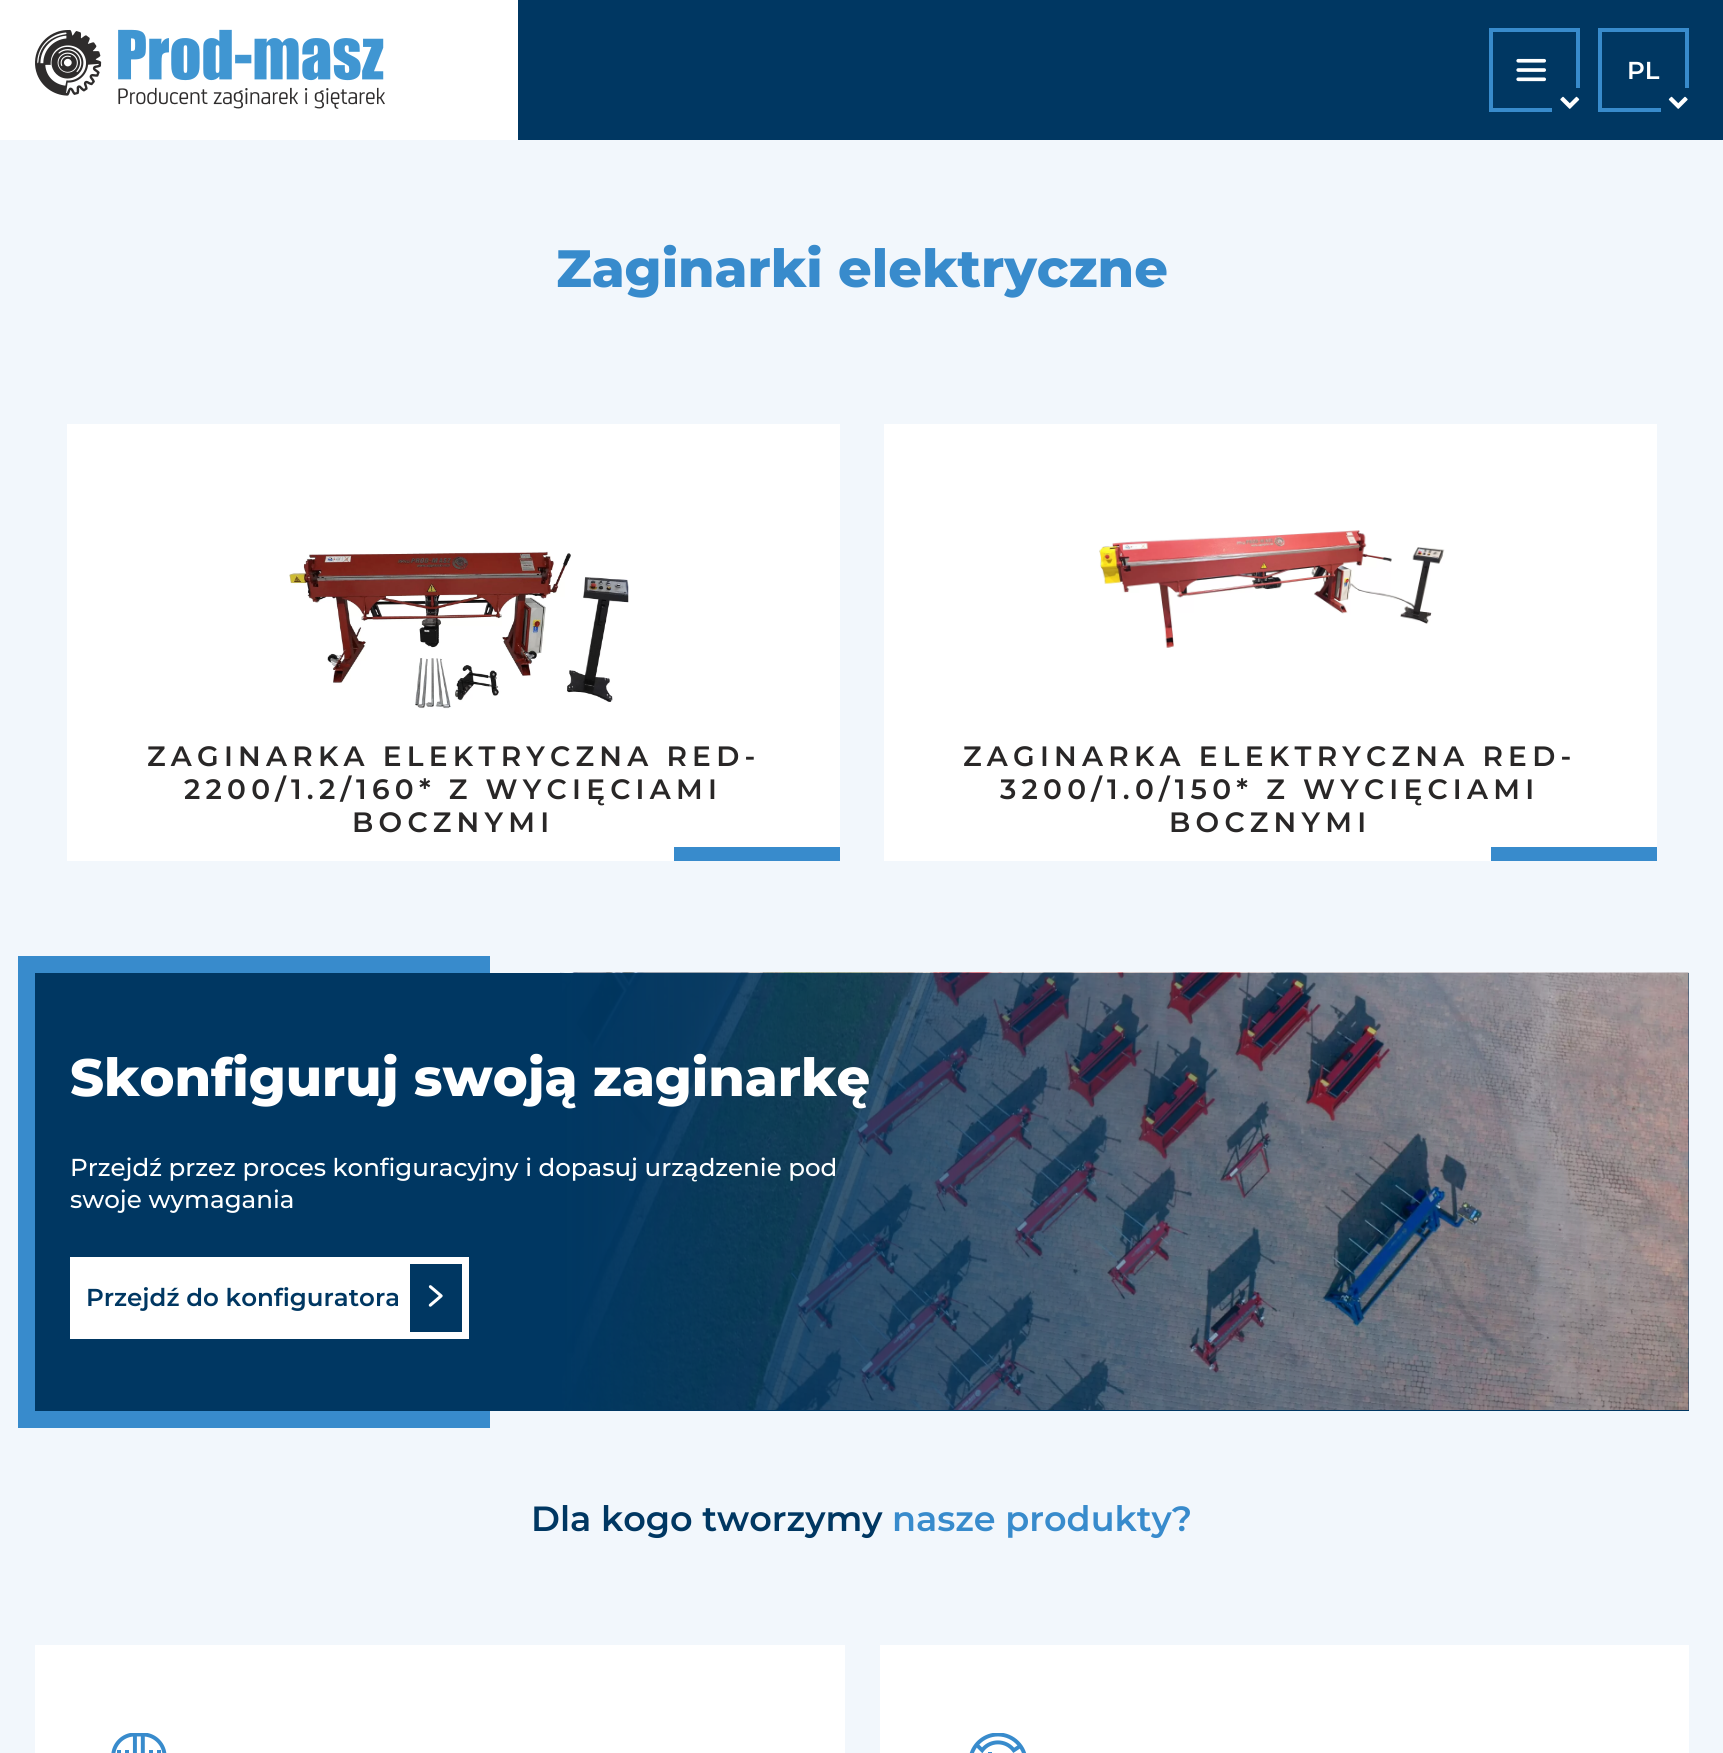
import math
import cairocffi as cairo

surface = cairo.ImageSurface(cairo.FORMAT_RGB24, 1723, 1753)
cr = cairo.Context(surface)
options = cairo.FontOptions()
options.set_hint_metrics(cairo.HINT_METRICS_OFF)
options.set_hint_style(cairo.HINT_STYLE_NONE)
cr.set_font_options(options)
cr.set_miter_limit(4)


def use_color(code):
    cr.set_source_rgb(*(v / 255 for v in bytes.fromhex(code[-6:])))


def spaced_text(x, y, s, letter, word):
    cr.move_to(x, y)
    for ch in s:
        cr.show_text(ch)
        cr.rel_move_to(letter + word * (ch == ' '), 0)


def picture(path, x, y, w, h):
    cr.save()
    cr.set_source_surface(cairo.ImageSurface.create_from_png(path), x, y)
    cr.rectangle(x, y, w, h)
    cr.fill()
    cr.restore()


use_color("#f2f7fc")
cr.paint()
use_color("#ffffff")
cr.rectangle(0, 0, 518, 140)
cr.fill()
picture("img1.png", 35, 29, 350, 80)
use_color("#003762")
cr.rectangle(518, 0, 1205, 140)
cr.fill()
cr.rectangle(1491, 30, 87, 80)
use_color("#388bcc")
cr.set_line_width(4)
cr.stroke()
picture("img2.png", 1516, 58, 30, 24)
use_color("#003762")
cr.rectangle(1552, 88, 28, 24)
cr.fill()
picture("img3.png", 1560, 96, 20, 13)
cr.rectangle(1600, 30, 87, 80)
use_color("#388bcc")
cr.stroke()
cr.select_font_face("Montserrat SemiBold")
cr.set_font_size(24.5)
use_color("#ffffff")
cr.move_to(1627, 79)
cr.show_text("PL")
use_color("#003762")
cr.rectangle(1661, 88, 28, 24)
cr.fill()
picture("img4.png", 1668, 96, 20, 13)
cr.select_font_face("Montserrat ExtraBold")
cr.set_font_size(52.5)
use_color("#388bcc")
cr.move_to(556, 287)
cr.show_text("Zaginarki elektryczne")
use_color("#ffffff")
cr.rectangle(67, 424, 773, 437)
cr.fill()
picture("img5.png", 289, 551, 340, 158)
cr.select_font_face("Montserrat SemiBold")
cr.set_font_size(28)
use_color("#292727")
spaced_text(147, 766, "ZAGINARKA ELEKTRYCZNA RED-", 5.25, 0)
spaced_text(184, 799, "2200/1.2/160* Z WYCIĘCIAMI", 5.25, 0)
spaced_text(352, 832, "BOCZNYMI", 5.25, 0)
use_color("#388bcc")
cr.rectangle(674, 847, 166, 14)
cr.fill()
use_color("#ffffff")
cr.rectangle(884, 424, 773, 437)
cr.fill()
picture("img6.png", 1099, 530, 346, 118)
use_color("#292727")
spaced_text(963, 766, "ZAGINARKA ELEKTRYCZNA RED-", 5.25, 0)
spaced_text(1000, 799, "3200/1.0/150* Z WYCIĘCIAMI", 5.25, 0)
spaced_text(1169, 832, "BOCZNYMI", 5.25, 0)
use_color("#388bcc")
cr.rectangle(1491, 847, 166, 14)
cr.fill()
cr.rectangle(18, 956, 472, 472)
cr.fill()
use_color("#003762")
cr.rectangle(35, 973, 1654, 438)
cr.fill()
picture("img8.png", 560, 972, 1129, 438)
gradient = cairo.LinearGradient(1689, 1192, 560, 1192)
gradient.add_color_stop_rgba(0, 0, 0.216, 0.384, 0)
gradient.add_color_stop_rgba(1, 0, 0.216, 0.384, 1)
cr.set_source(gradient)
cr.rectangle(560, 973, 1105, 437)
cr.fill()
cr.select_font_face("Montserrat ExtraBold")
cr.set_font_size(52.5)
use_color("#ffffff")
cr.move_to(70, 1096)
cr.show_text("Skonfiguruj swoją zaginarkę")
cr.select_font_face("Montserrat Medium")
cr.set_font_size(24.5)
cr.move_to(70, 1176)
cr.show_text("Przejdź przez proces konfiguracyjny i dopasuj urządzenie pod")
cr.move_to(70, 1208)
cr.show_text("swoje wymagania")
cr.rectangle(70, 1257, 399, 82)
cr.fill()
cr.select_font_face("Montserrat SemiBold")
use_color("#003762")
cr.move_to(86, 1306)
cr.show_text("Przejdź do konfiguratora")
cr.rectangle(410, 1264, 52, 68)
cr.fill()
picture("img7.png", 428, 1285, 15, 22)
cr.set_font_size(35)
cr.move_to(531, 1531)
cr.show_text("Dla kogo tworzymy")
use_color("#388bcc")
cr.move_to(892, 1531)
cr.show_text("nasze produkty?")
use_color("#ffffff")
cr.rectangle(35, 1645, 810, 108)
cr.fill()
picture("img9.png", 111, 1733, 56, 20)
cr.rectangle(880, 1645, 809, 108)
cr.fill()
picture("img10.png", 969, 1733, 58, 20)
surface.write_to_png("result.png")
